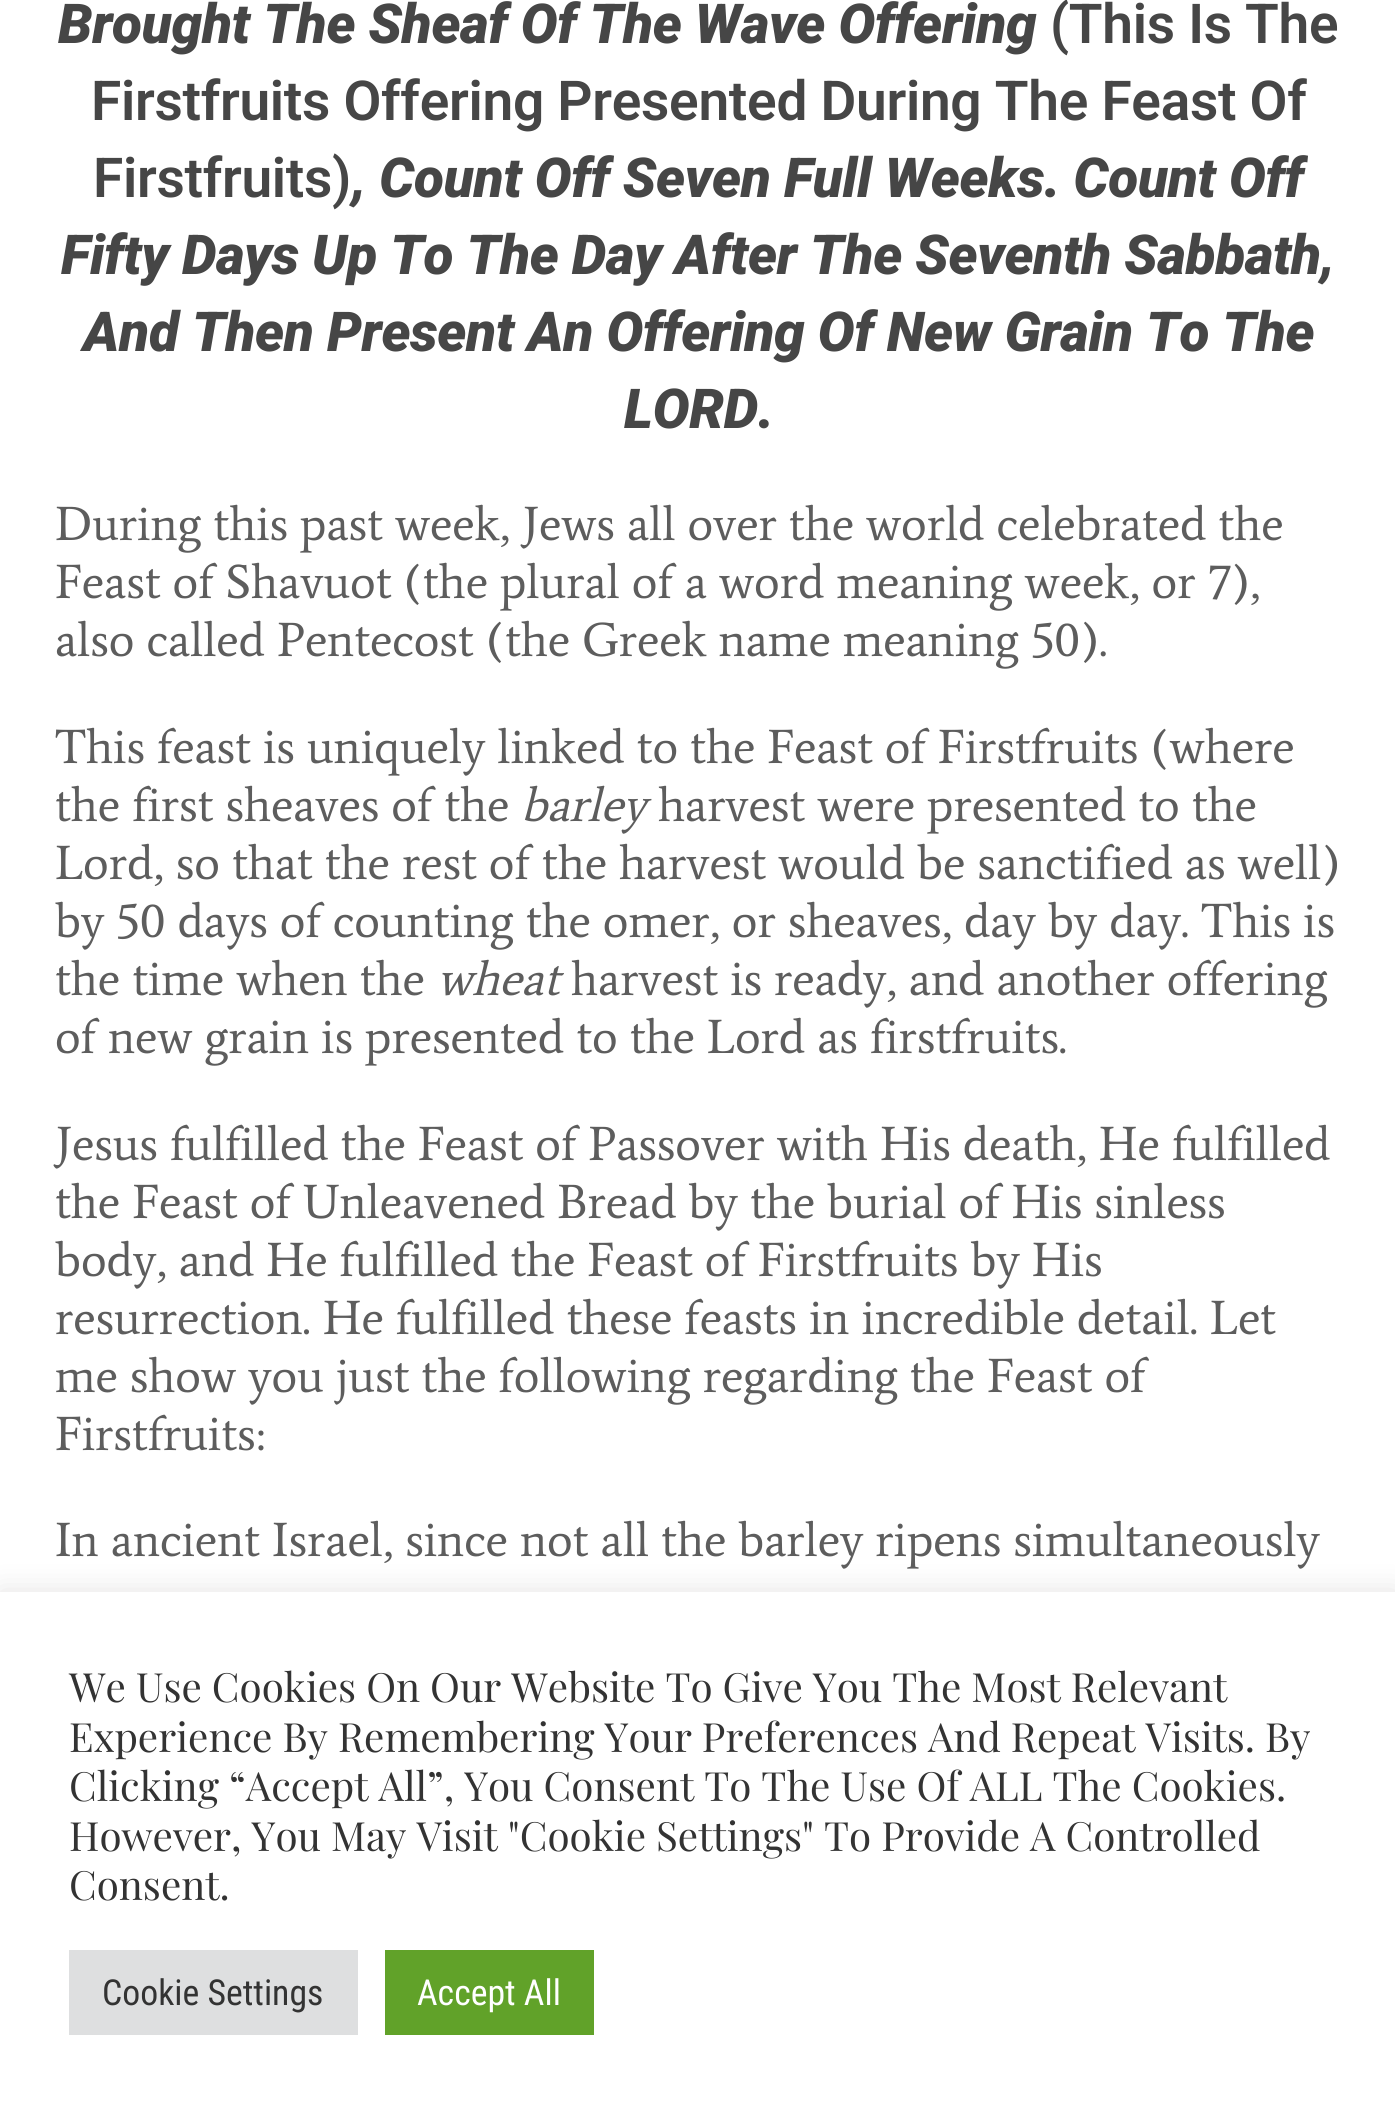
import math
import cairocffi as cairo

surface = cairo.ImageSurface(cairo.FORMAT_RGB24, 1395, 2115)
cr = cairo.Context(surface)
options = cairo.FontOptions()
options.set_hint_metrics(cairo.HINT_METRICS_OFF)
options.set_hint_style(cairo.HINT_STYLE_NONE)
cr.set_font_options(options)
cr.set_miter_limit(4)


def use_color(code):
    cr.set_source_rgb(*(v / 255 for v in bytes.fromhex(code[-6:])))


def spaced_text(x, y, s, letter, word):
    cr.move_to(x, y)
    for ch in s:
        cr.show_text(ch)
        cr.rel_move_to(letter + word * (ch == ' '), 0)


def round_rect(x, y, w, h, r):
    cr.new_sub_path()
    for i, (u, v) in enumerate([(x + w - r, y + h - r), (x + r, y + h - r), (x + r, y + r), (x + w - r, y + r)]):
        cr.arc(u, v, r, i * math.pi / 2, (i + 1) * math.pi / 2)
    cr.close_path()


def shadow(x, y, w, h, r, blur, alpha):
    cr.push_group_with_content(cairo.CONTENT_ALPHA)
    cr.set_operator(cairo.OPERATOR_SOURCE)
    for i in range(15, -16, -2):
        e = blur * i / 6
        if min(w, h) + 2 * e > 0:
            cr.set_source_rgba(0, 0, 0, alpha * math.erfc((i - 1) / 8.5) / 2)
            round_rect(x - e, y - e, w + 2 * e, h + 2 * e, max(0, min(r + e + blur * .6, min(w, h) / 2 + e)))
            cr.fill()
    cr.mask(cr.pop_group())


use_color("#ffffff")
cr.paint()
cr.select_font_face("Roboto Black", cairo.FONT_SLANT_ITALIC)
cr.set_font_size(55)
use_color("#464646")
spaced_text(58, 43, "Brought The Sheaf Of The Wave Offering", -0.28, 0)
cr.select_font_face("Roboto SemiBold")
spaced_text(1050, 43, "(This Is The", -0.28, 0)
spaced_text(91, 120, "Firstfruits Offering Presented During The Feast Of", -0.28, 0)
spaced_text(93, 197, "Firstfruits)", -0.28, 0)
cr.select_font_face("Roboto Black", cairo.FONT_SLANT_ITALIC)
spaced_text(352, 197, ", Count Off Seven Full Weeks. Count Off", -0.28, 0)
spaced_text(61, 274, "Fifty Days Up To The Day After The Seventh Sabbath,", -0.28, 0)
spaced_text(83, 351, "And Then Present An Offering Of New Grain To The", -0.28, 0)
spaced_text(624, 428, "LORD.", -0.28, 0)
cr.select_font_face("Average")
cr.set_font_size(48.4)
use_color("#5d5d5d")
cr.move_to(55, 540)
cr.show_text("During this past week, Jews all over the world celebrated the")
cr.move_to(55, 598)
cr.show_text("Feast of Shavuot (the plural of a word meaning week, or 7),")
cr.move_to(55, 656)
cr.show_text("also called Pentecost (the Greek name meaning 50).")
cr.move_to(55, 763)
cr.show_text("This feast is uniquely linked to the Feast of Firstfruits (where")
cr.move_to(55, 821)
cr.show_text("the first sheaves of the")
cr.select_font_face("Average", cairo.FONT_SLANT_ITALIC)
cr.move_to(521, 821)
cr.show_text("barley")
cr.select_font_face("Average")
cr.move_to(658, 821)
cr.show_text("harvest were presented to the")
cr.move_to(55, 879)
cr.show_text("Lord, so that the rest of the harvest would be sanctified as well)")
cr.move_to(55, 937)
cr.show_text("by 50 days of counting the omer, or sheaves, day by day. This is")
cr.move_to(55, 995)
cr.show_text("the time when the")
cr.select_font_face("Average", cairo.FONT_SLANT_ITALIC)
cr.move_to(437, 995)
cr.show_text("wheat")
cr.select_font_face("Average")
cr.move_to(571, 995)
cr.show_text("harvest is ready, and another offering")
cr.move_to(55, 1053)
cr.show_text("of new grain is presented to the Lord as firstfruits.")
cr.move_to(55, 1160)
cr.show_text("Jesus fulfilled the Feast of Passover with His death, He fulfilled")
cr.move_to(55, 1218)
cr.show_text("the Feast of Unleavened Bread by the burial of His sinless")
cr.move_to(55, 1276)
cr.show_text("body, and He fulfilled the Feast of Firstfruits by His")
cr.move_to(55, 1334)
cr.show_text("resurrection. He fulfilled these feasts in incredible detail. Let")
cr.move_to(55, 1392)
cr.show_text("me show you just the following regarding the Feast of")
cr.move_to(55, 1450)
cr.show_text("Firstfruits:")
cr.move_to(55, 1556)
cr.show_text("In ancient Israel, since not all the barley ripens simultaneously")
use_color("#acabab")
shadow(0, 1590, 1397, 525, 0, 14, 0.3)
use_color("#ffffff")
cr.rectangle(0, 1592, 1395, 523)
cr.fill()
cr.select_font_face("Playfair Display")
cr.set_font_size(40.3)
use_color("#333333")
cr.move_to(69, 1702)
cr.show_text("We Use Cookies On Our Website To Give You The Most Relevant")
cr.move_to(69, 1752)
cr.show_text("Experience By Remembering Your Preferences And Repeat Visits. By")
cr.move_to(69, 1801)
cr.show_text("Clicking “Accept All”, You Consent To The Use Of ALL The Cookies.")
cr.move_to(69, 1851)
cr.show_text("However, You May Visit \"Cookie Settings\" To Provide A Controlled")
cr.move_to(69, 1900)
cr.show_text("Consent.")
use_color("#dedfe0")
cr.rectangle(69, 1950, 289, 85)
cr.fill()
cr.select_font_face("Roboto Condensed")
cr.set_font_size(35.75)
use_color("#333333")
cr.move_to(102, 2005)
cr.show_text("Cookie Settings")
use_color("#61a229")
cr.rectangle(385, 1950, 209, 85)
cr.fill()
use_color("#ffffff")
cr.move_to(417, 2005)
cr.show_text("Accept All")
surface.write_to_png("result.png")
